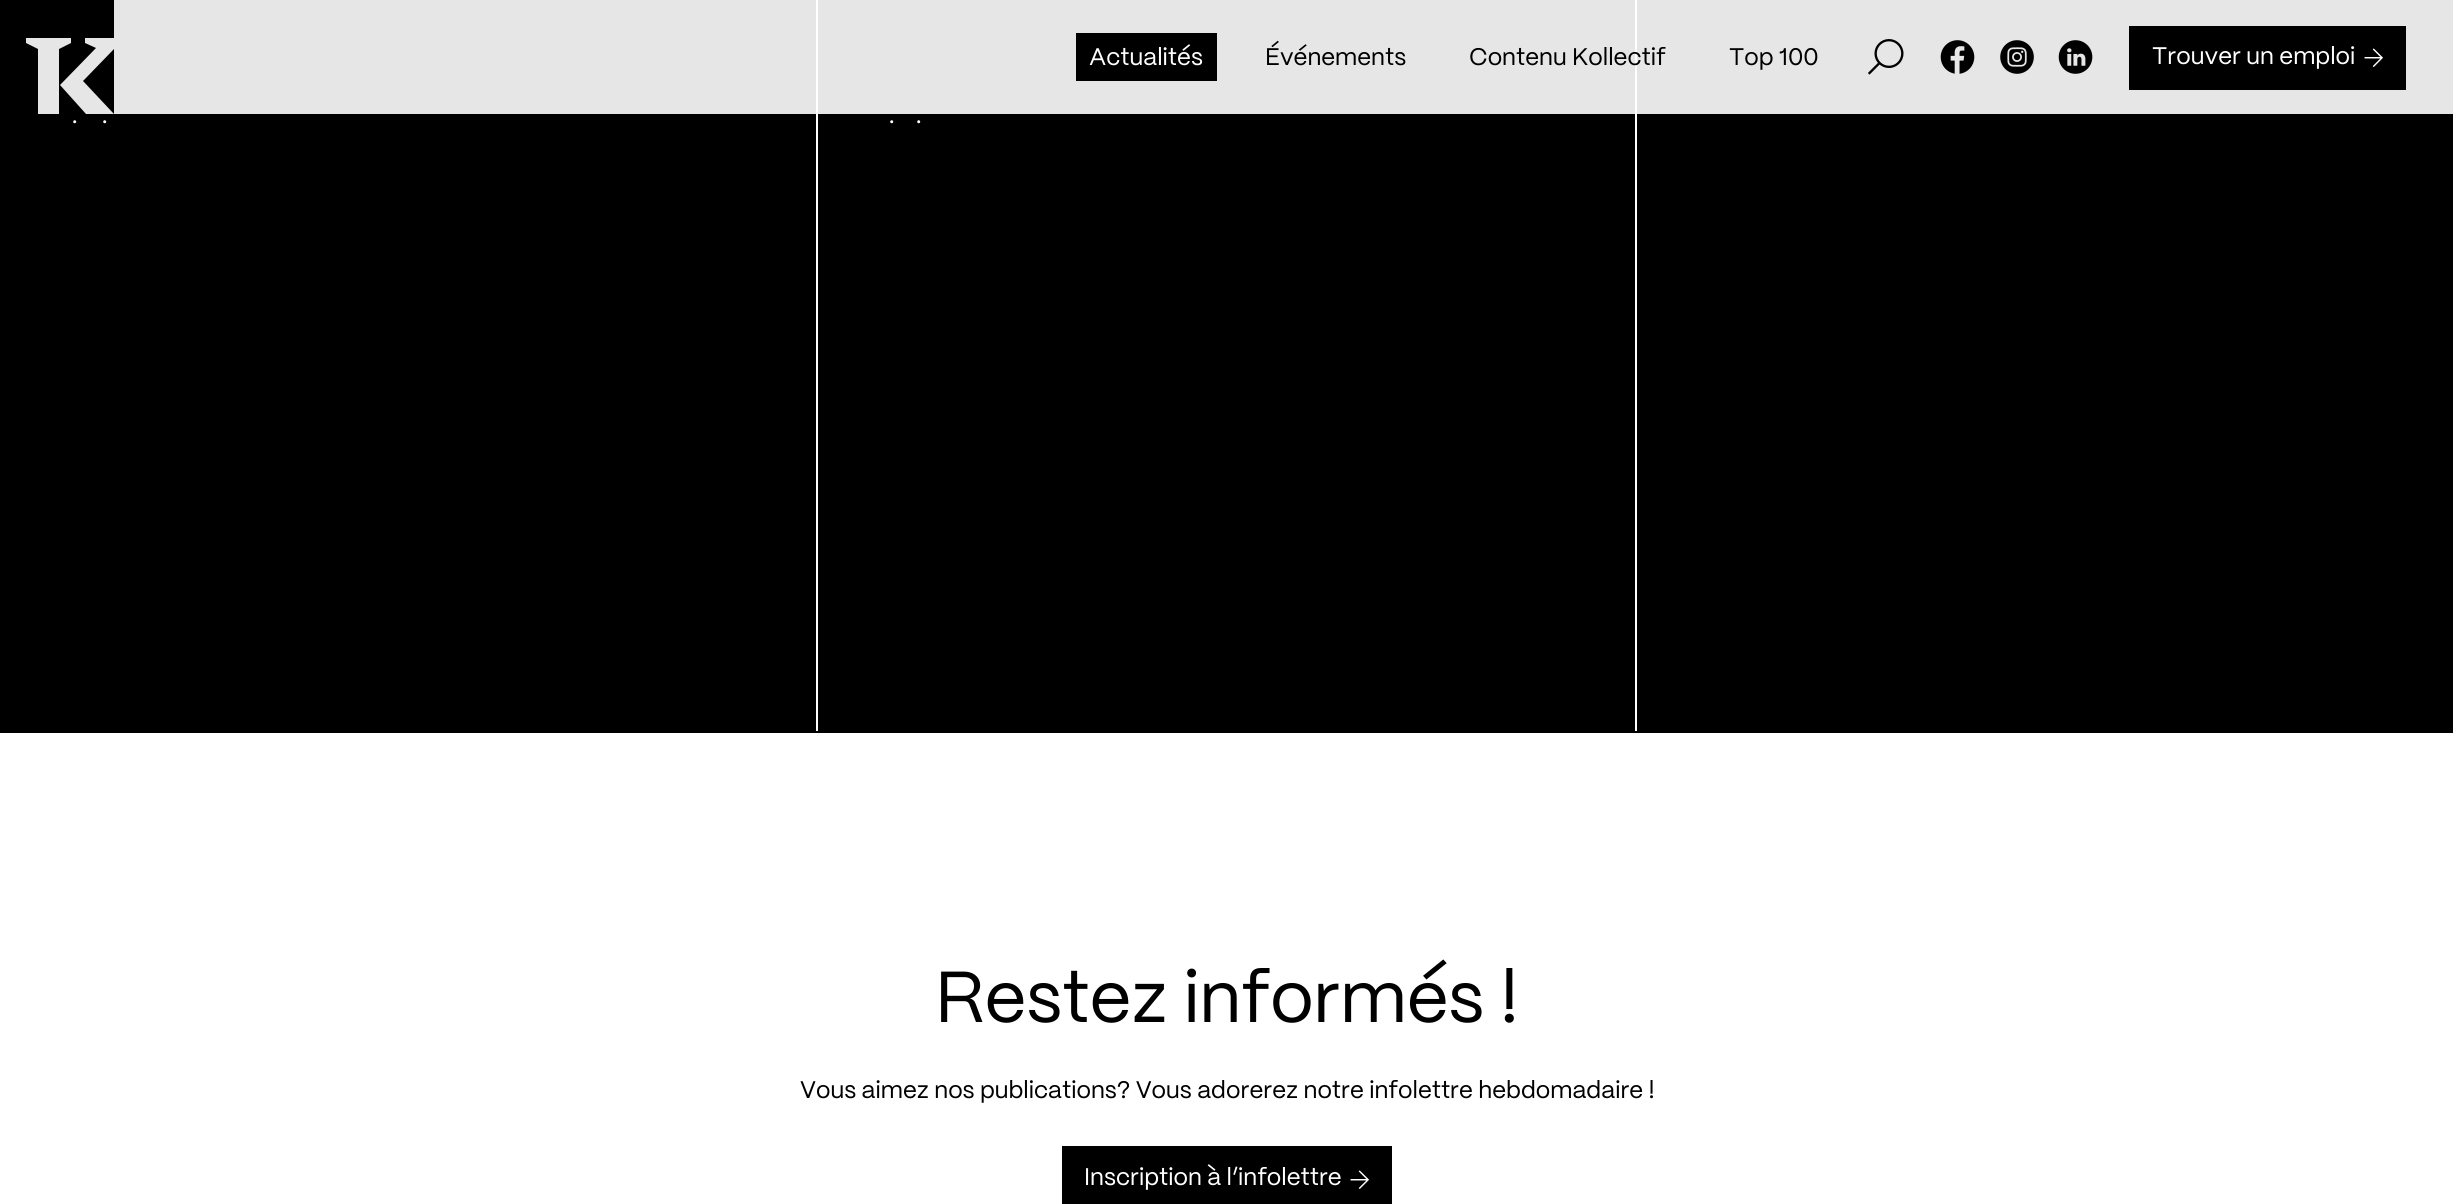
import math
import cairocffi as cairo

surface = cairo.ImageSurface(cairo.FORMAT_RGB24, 2453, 1204)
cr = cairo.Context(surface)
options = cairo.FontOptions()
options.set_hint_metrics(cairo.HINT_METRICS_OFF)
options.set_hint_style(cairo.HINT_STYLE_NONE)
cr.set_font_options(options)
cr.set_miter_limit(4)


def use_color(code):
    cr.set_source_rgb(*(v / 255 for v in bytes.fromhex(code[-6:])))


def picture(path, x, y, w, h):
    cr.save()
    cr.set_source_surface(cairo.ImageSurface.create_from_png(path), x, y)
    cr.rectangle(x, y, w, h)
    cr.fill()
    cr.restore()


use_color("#ffffff")
cr.paint()
use_color("#000000")
cr.rectangle(0, 0, 816, 731)
cr.fill()
cr.rectangle(818, 0, 817, 731)
cr.fill()
cr.rectangle(1637, 0, 816, 731)
cr.fill()
cr.set_source_rgba(1, 1, 1, 0.9)
cr.rectangle(26, 0, 2427, 114)
cr.fill()
use_color("#000000")
cr.set_fill_rule(cairo.FILL_RULE_EVEN_ODD)
cr.new_path()
cr.move_to(114, 114)
cr.line_to(114, 49)
cr.line_to(83, 81)
cr.close_path()
cr.move_to(0, 0)
cr.line_to(0, 114)
cr.line_to(38, 114)
cr.line_to(38, 49)
cr.line_to(26, 43)
cr.line_to(26, 38)
cr.line_to(71, 38)
cr.line_to(71, 43)
cr.line_to(59, 49)
cr.line_to(59, 114)
cr.line_to(86, 114)
cr.line_to(60, 85)
cr.line_to(96, 48)
cr.line_to(85, 43)
cr.line_to(85, 38)
cr.line_to(114, 38)
cr.line_to(114, 0)
cr.close_path()
cr.fill()
cr.rectangle(1076, 33, 141, 48)
cr.fill()
cr.select_font_face("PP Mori")
cr.set_font_size(24)
use_color("#ffffff")
cr.move_to(1089, 65)
cr.show_text("Actualités")
use_color("#000000")
cr.move_to(1265, 65)
cr.show_text("Événements")
cr.move_to(1469, 65)
cr.show_text("Contenu Kollectif")
cr.move_to(1729, 65)
cr.show_text("Top 100")
picture("img1.png", 1868, 39, 36, 36)
picture("img2.png", 1940, 40, 35, 34)
picture("img3.png", 2000, 40, 34, 34)
picture("img4.png", 2058, 40, 35, 34)
cr.rectangle(2129, 26, 277, 64)
cr.fill()
use_color("#ffffff")
cr.move_to(2152, 64)
cr.show_text("Trouver un emploi")
picture("img5.png", 2364, 48, 19, 19)
cr.move_to(72, 123)
cr.show_text(".")
cr.move_to(102, 123)
cr.show_text(".")
cr.move_to(889, 123)
cr.show_text(".")
cr.move_to(916, 123)
cr.show_text(".")
use_color("#000000")
cr.rectangle(0, 731, 2453, 2)
cr.fill()
cr.set_font_size(72)
cr.move_to(935, 1022)
cr.show_text("Restez informés !")
cr.set_font_size(24)
cr.move_to(800, 1098)
cr.show_text("Vous aimez nos publications? Vous adorerez notre infolettre hebdomadaire !")
cr.rectangle(1062, 1146, 330, 58)
cr.fill()
use_color("#ffffff")
cr.move_to(1084, 1185)
cr.show_text("Inscription à l’infolettre")
picture("img5.png", 1350, 1170, 19, 19)
surface.write_to_png("result.png")
